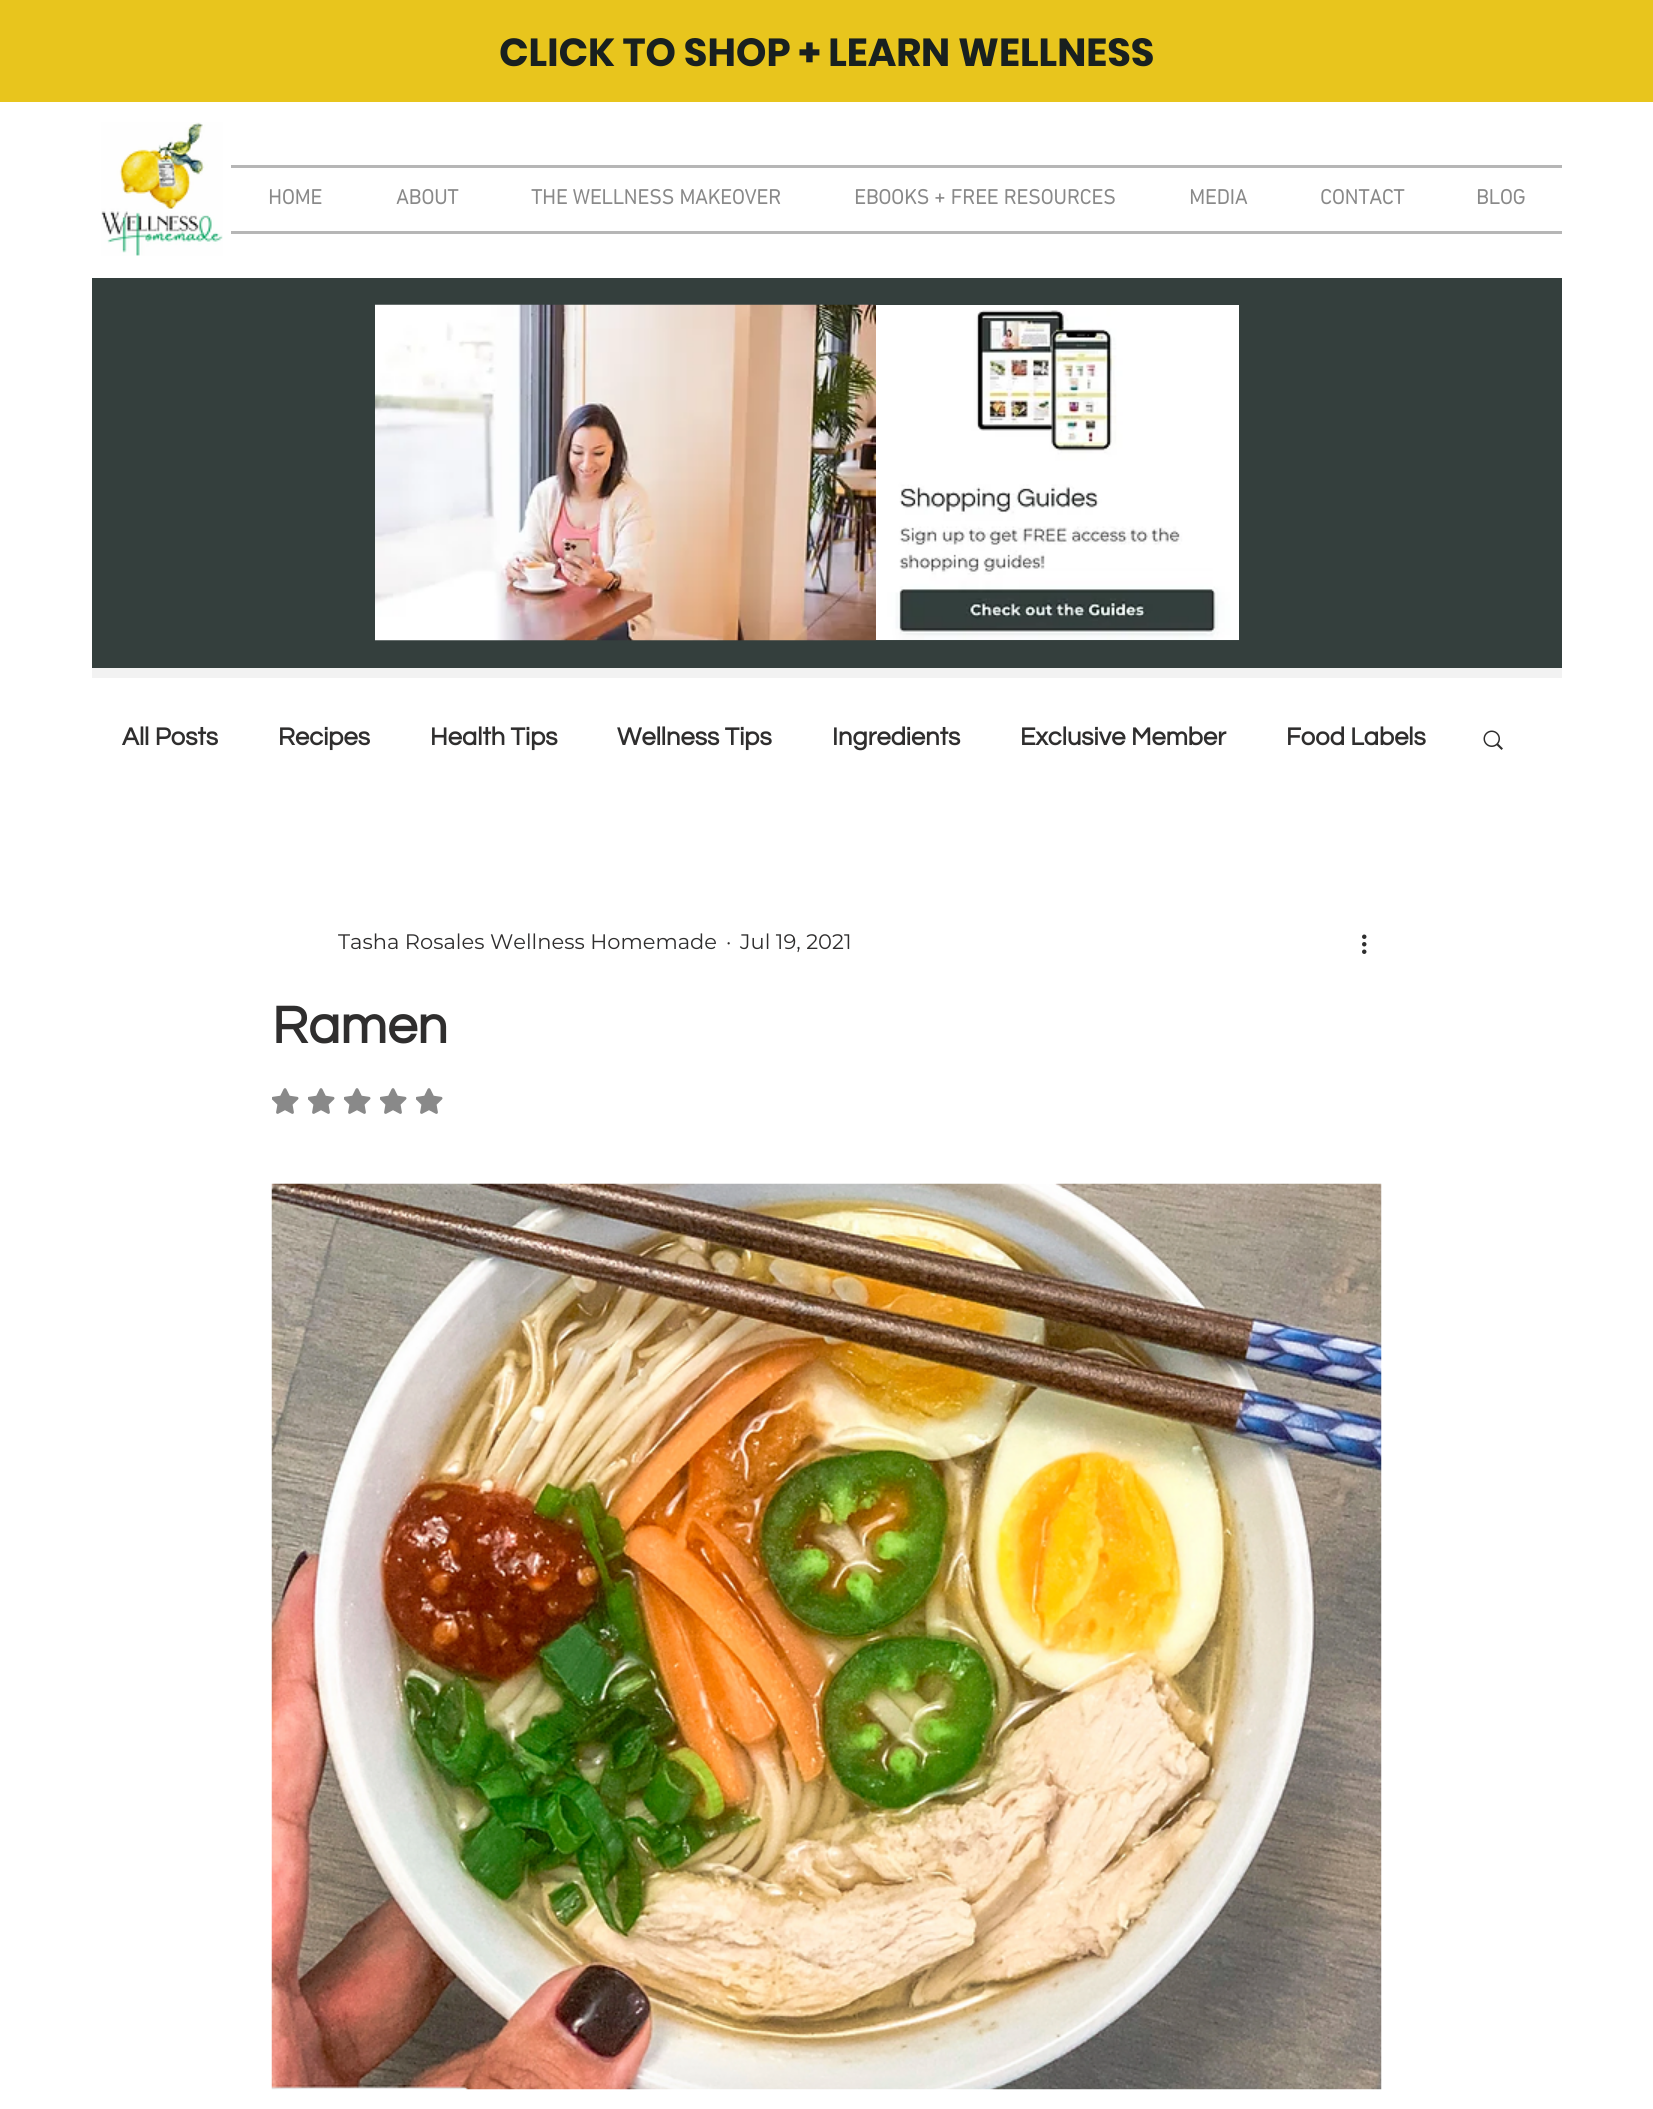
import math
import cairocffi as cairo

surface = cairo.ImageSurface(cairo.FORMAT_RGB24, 1653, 2109)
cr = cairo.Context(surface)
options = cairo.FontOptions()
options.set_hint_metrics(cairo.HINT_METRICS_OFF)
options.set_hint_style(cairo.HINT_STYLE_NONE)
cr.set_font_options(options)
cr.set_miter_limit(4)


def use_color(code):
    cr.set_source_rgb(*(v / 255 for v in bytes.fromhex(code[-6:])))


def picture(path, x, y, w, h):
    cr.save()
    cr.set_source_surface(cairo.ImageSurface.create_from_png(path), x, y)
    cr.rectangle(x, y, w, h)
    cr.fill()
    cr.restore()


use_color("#ffffff")
cr.paint()
use_color("#e8c51d")
cr.rectangle(0, 0, 1653, 102)
cr.fill()
cr.select_font_face("Poppins", cairo.FONT_SLANT_NORMAL, cairo.FONT_WEIGHT_BOLD)
cr.set_font_size(39)
use_color("#19201f")
cr.move_to(499, 66)
cr.show_text("CLICK TO SHOP + LEARN WELLNESS")
picture("img1.png", 101, 122, 122, 134)
use_color("#b6b6b6")
cr.rectangle(231, 165, 1331, 3)
cr.fill()
cr.rectangle(231, 231, 1331, 3)
cr.fill()
cr.select_font_face("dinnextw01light", cairo.FONT_SLANT_NORMAL, cairo.FONT_WEIGHT_BOLD)
cr.set_font_size(21)
use_color("#898989")
cr.move_to(268, 204)
cr.show_text("HOME")
cr.move_to(396, 204)
cr.show_text("ABOUT")
cr.move_to(531, 204)
cr.show_text("THE WELLNESS MAKEOVER")
cr.move_to(854, 204)
cr.show_text("EBOOKS + FREE RESOURCES")
cr.move_to(1189, 204)
cr.show_text("MEDIA")
cr.move_to(1320, 204)
cr.show_text("CONTACT")
cr.move_to(1476, 204)
cr.show_text("BLOG")
use_color("#f2f2f2")
cr.rectangle(92, 668, 1470, 10)
cr.fill()
use_color("#343f3d")
cr.rectangle(92, 278, 1470, 390)
cr.fill()
picture("img2.png", 375, 304, 501, 337)
picture("img3.png", 876, 305, 363, 336)
cr.select_font_face("Questrial", cairo.FONT_SLANT_NORMAL, cairo.FONT_WEIGHT_BOLD)
cr.set_font_size(25.5)
use_color("#2f2e2e")
cr.move_to(122, 745)
cr.show_text("All Posts")
cr.move_to(278, 745)
cr.show_text("Recipes")
cr.move_to(430, 745)
cr.show_text("Health Tips")
cr.move_to(617, 745)
cr.show_text("Wellness Tips")
cr.move_to(832, 745)
cr.show_text("Ingredients")
cr.move_to(1020, 745)
cr.show_text("Exclusive Member")
cr.move_to(1286, 745)
cr.show_text("Food Labels")
picture("img4.png", 1483, 730, 20, 20)
cr.select_font_face("Montserrat")
cr.set_font_size(21)
cr.move_to(338, 949)
cr.show_text("Tasha Rosales Wellness Homemade")
cr.move_to(726, 949)
cr.show_text("·")
cr.move_to(740, 949)
cr.show_text("Jul 19, 2021")
picture("img5.png", 1362, 934, 5, 20)
cr.select_font_face("Questrial", cairo.FONT_SLANT_NORMAL, cairo.FONT_WEIGHT_BOLD)
cr.set_font_size(54)
cr.move_to(272, 1043)
cr.show_text("Ramen")
picture("img6.png", 272, 1088, 27, 26)
picture("img6.png", 308, 1088, 27, 26)
picture("img6.png", 344, 1088, 27, 26)
picture("img6.png", 380, 1088, 27, 26)
picture("img6.png", 416, 1088, 27, 26)
picture("img7.png", 271, 1183, 1111, 907)
surface.write_to_png("result.png")
